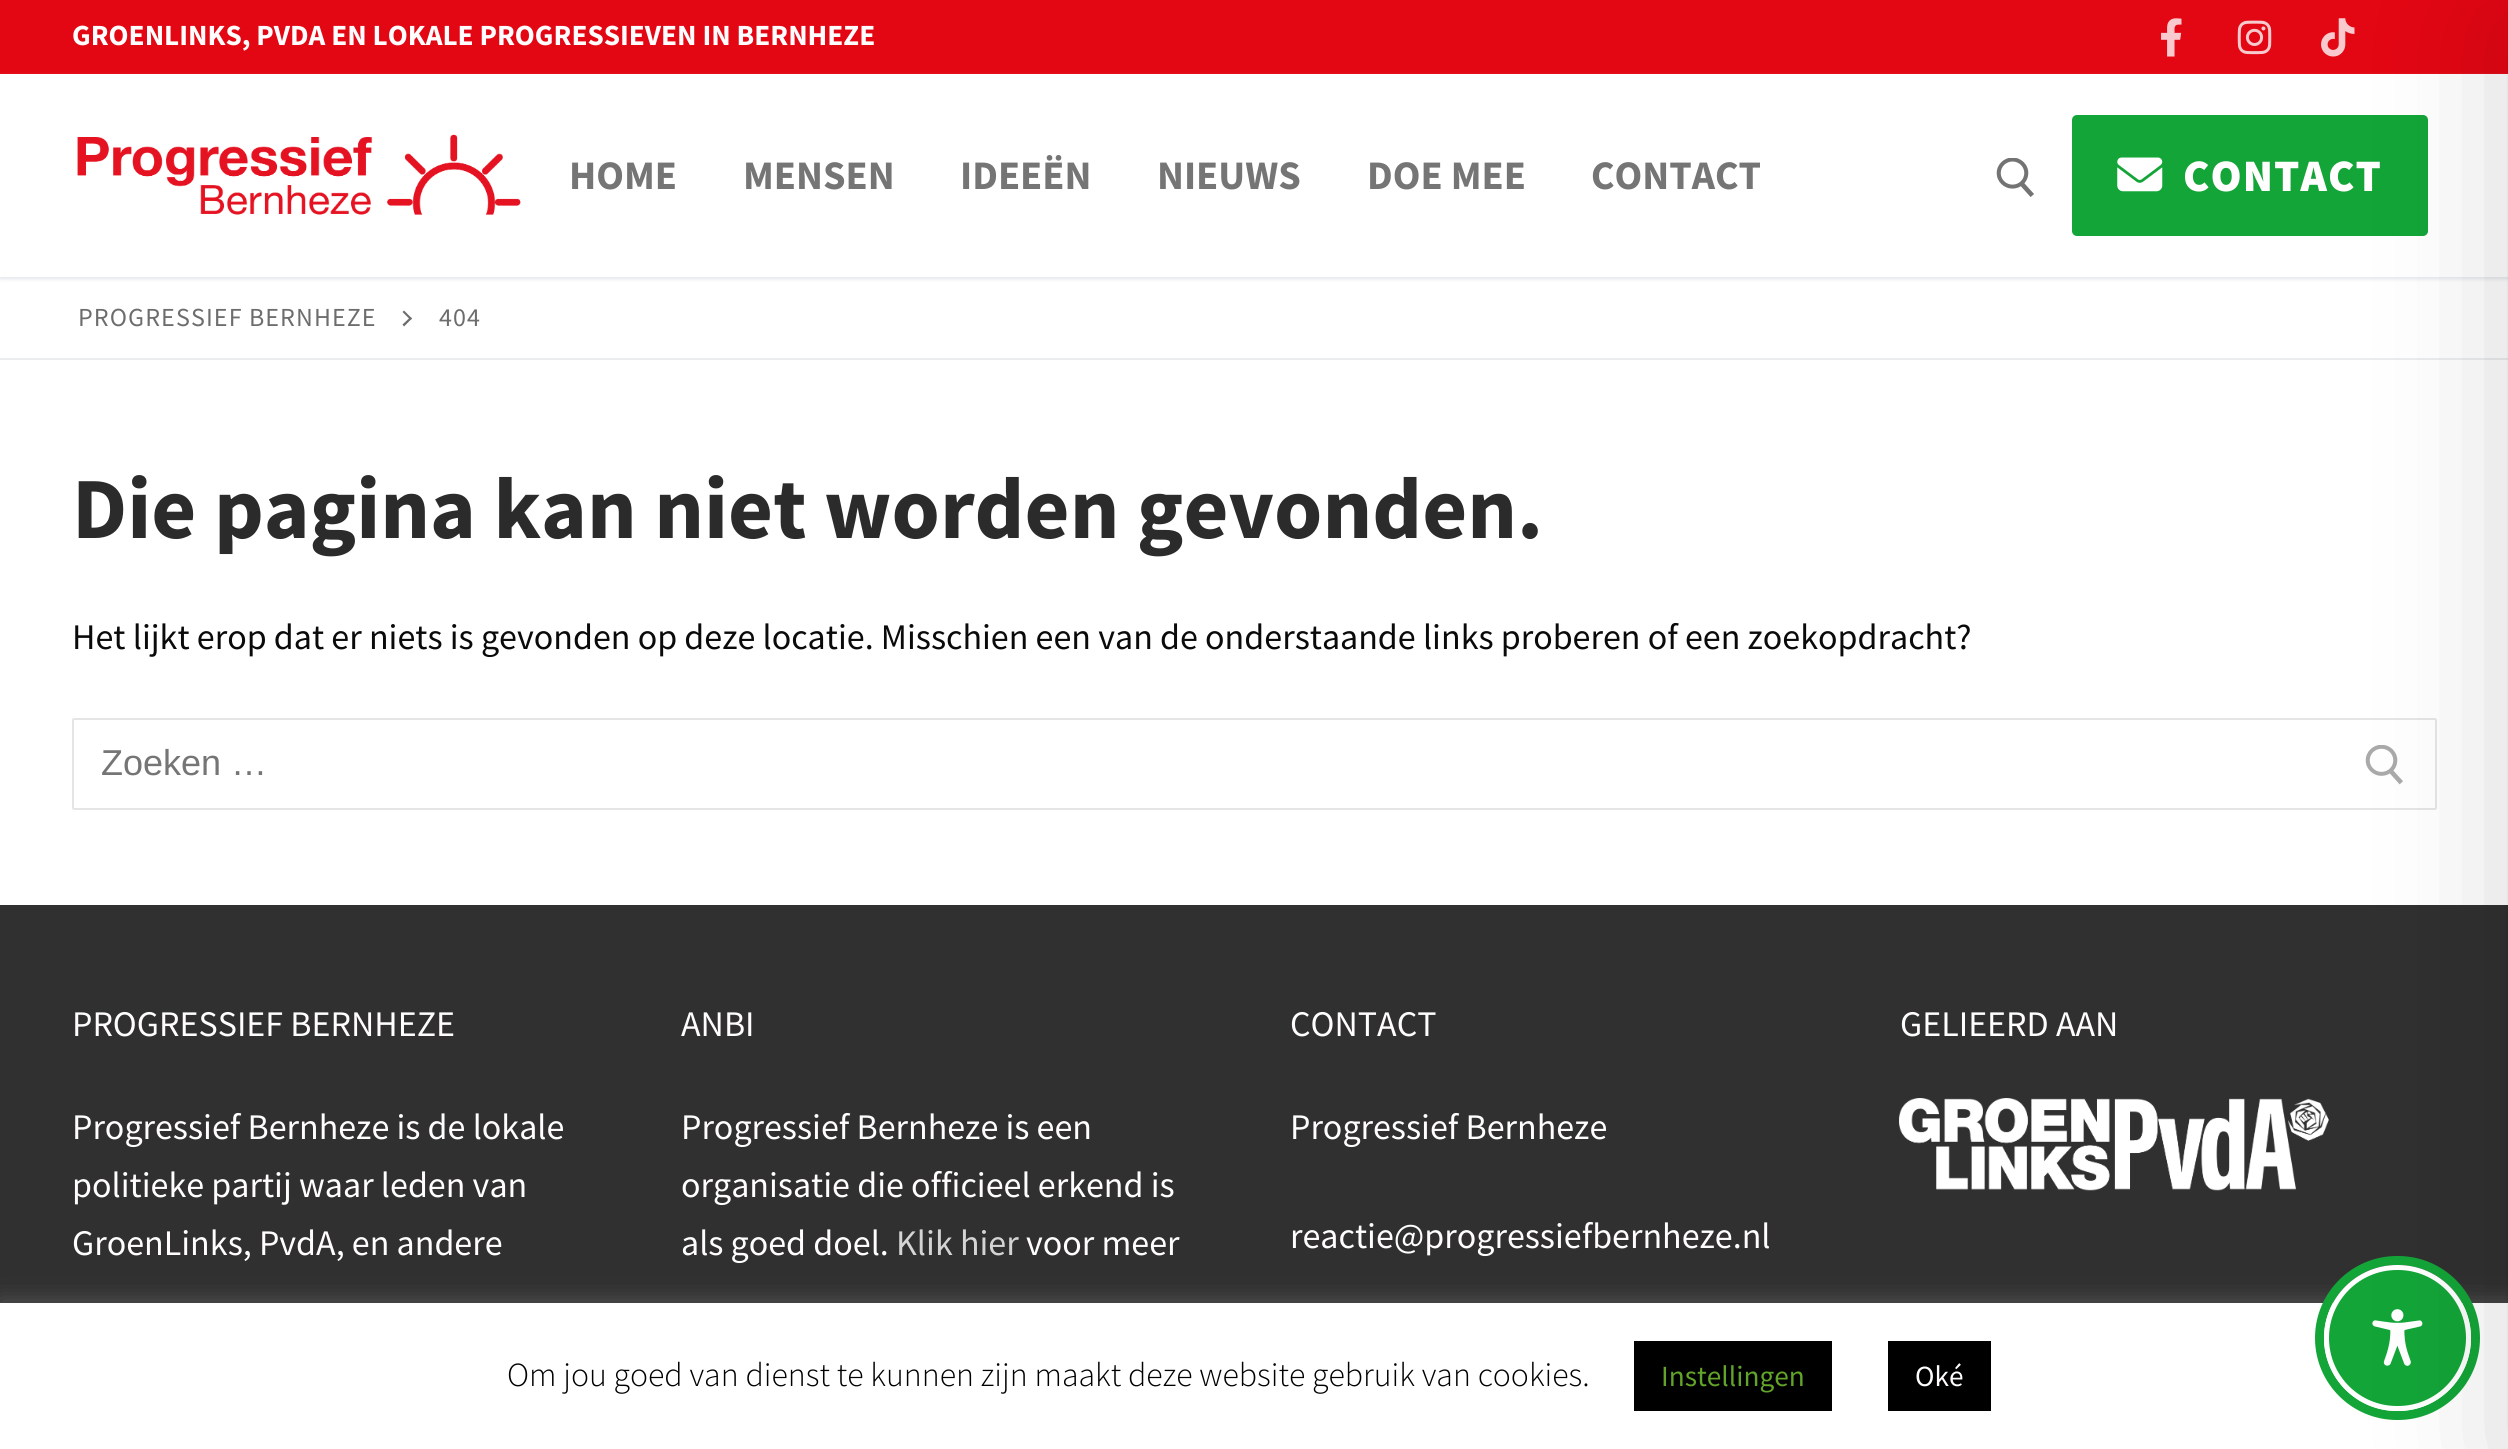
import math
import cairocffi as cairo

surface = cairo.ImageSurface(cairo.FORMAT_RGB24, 2508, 1449)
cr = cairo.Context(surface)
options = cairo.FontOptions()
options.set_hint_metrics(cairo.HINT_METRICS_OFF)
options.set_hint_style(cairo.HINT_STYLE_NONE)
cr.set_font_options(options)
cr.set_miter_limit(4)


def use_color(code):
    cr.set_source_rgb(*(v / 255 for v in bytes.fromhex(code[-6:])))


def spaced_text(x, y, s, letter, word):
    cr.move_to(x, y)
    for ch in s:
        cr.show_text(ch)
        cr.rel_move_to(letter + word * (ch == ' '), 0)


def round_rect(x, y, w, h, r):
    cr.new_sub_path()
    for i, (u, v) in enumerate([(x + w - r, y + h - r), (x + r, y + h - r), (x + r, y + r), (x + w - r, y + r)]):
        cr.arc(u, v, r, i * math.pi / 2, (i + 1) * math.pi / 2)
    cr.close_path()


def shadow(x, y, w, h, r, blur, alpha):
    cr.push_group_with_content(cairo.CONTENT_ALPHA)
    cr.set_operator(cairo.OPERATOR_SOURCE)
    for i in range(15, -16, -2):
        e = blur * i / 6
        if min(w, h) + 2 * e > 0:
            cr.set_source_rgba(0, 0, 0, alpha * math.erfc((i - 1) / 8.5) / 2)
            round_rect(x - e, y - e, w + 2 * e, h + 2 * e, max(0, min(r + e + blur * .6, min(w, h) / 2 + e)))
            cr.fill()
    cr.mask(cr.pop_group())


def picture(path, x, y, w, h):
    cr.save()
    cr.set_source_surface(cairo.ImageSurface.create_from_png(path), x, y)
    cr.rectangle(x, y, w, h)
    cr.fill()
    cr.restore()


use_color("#ffffff")
cr.paint()
use_color("#e30613")
cr.rectangle(0, 0, 2508, 74)
cr.fill()
cr.select_font_face("Source Sans Pro", cairo.FONT_SLANT_NORMAL, cairo.FONT_WEIGHT_BOLD)
cr.set_font_size(29.25)
use_color("#fffdfd")
cr.move_to(72, 45)
cr.show_text("GROENLINKS, PVDA EN LOKALE PROGRESSIEVEN IN BERNHEZE")
picture("img1.png", 2161, 18, 21, 39)
picture("img2.png", 2237, 20, 35, 35)
picture("img3.png", 2321, 18, 34, 39)
use_color("#e1e5ea")
shadow(0, 77, 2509, 202, 0, 2, 1)
use_color("#ffffff")
cr.rectangle(0, 74, 2508, 203)
cr.fill()
picture("img4.png", 77, 134, 444, 81)
cr.set_font_size(40.5)
use_color("#757575")
cr.move_to(569, 189)
cr.show_text("HOME")
cr.move_to(743, 189)
cr.show_text("MENSEN")
cr.move_to(960, 189)
cr.show_text("IDEEËN")
cr.move_to(1157, 189)
cr.show_text("NIEUWS")
cr.move_to(1367, 189)
cr.show_text("DOE MEE")
cr.move_to(1591, 189)
cr.show_text("CONTACT")
picture("img5.png", 1996, 158, 38, 39)
use_color("#13a538")
round_rect(2072, 115, 356, 121, 5)
cr.fill()
picture("img6.png", 2117, 157, 46, 35)
cr.select_font_face("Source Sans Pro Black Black")
cr.set_font_size(45)
use_color("#fffdfd")
spaced_text(2183, 191, "CONTACT", 1.1, 0)
use_color("#eaecee")
cr.rectangle(0, 358, 2508, 2)
cr.fill()
cr.select_font_face("Source Sans Pro")
cr.set_font_size(26)
use_color("#6d6d6d")
spaced_text(78, 326, "PROGRESSIEF BERNHEZE", 1.1, 0)
cr.new_path()
cr.move_to(412, 318.5)
cr.line_to(404, 326.5)
cr.line_to(402.5, 324.5)
cr.line_to(410.5, 317)
cr.close_path()
cr.fill()
cr.new_path()
cr.move_to(412, 318.5)
cr.line_to(410.5, 320)
cr.line_to(402.5, 312)
cr.line_to(404, 310.5)
cr.close_path()
cr.fill()
spaced_text(439, 326, "404", 1.1, 0)
cr.select_font_face("Source Sans Pro", cairo.FONT_SLANT_NORMAL, cairo.FONT_WEIGHT_BOLD)
cr.set_font_size(87.1)
use_color("#2b2b2b")
cr.move_to(72, 538)
cr.show_text("Die pagina kan niet worden gevonden.")
cr.select_font_face("Source Sans Pro")
cr.set_font_size(36)
use_color("#0a0a0a")
cr.move_to(72, 649)
cr.show_text("Het lijkt erop dat er niets is gevonden op deze locatie. Misschien een van de onderstaande links proberen of een zoekopdracht?")
round_rect(73, 719, 2363, 90, 1)
use_color("#e5e5e5")
cr.stroke()
cr.select_font_face("Liberation Sans")
use_color("#757575")
cr.move_to(101, 775)
cr.show_text("Zoeken …")
picture("img7.png", 2365, 745, 38, 40)
use_color("#303030")
cr.rectangle(0, 905, 2508, 398)
cr.fill()
cr.select_font_face("Source Sans Pro")
use_color("#fffdfd")
cr.move_to(72, 1036)
cr.show_text("PROGRESSIEF BERNHEZE")
cr.move_to(72, 1139)
cr.show_text("Progressief Bernheze is de lokale")
cr.move_to(72, 1197)
cr.show_text("politieke partij waar leden van")
cr.move_to(72, 1255)
cr.show_text("GroenLinks, PvdA, en andere")
cr.move_to(681, 1036)
cr.show_text("ANBI")
cr.move_to(681, 1139)
cr.show_text("Progressief Bernheze is een")
cr.move_to(681, 1197)
cr.show_text("organisatie die officieel erkend is")
cr.move_to(681, 1255)
cr.show_text("als goed doel.")
use_color("#d4d4d4")
cr.move_to(896, 1255)
cr.show_text("Klik hier")
use_color("#fffdfd")
cr.move_to(1026, 1255)
cr.show_text("voor meer")
cr.move_to(1290, 1036)
cr.show_text("CONTACT")
cr.move_to(1290, 1139)
cr.show_text("Progressief Bernheze")
cr.move_to(1290, 1248)
cr.show_text("reactie@progressiefbernheze.nl")
cr.move_to(1900, 1036)
cr.show_text("GELIEERD AAN")
picture("img8.png", 1899, 1098, 430, 93)
use_color("#acabab")
shadow(0, 1301, 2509, 146, 0, 11, 0.3)
use_color("#ffffff")
cr.rectangle(0, 1303, 2508, 146)
cr.fill()
round_rect(2319.5, 1260.5, 156, 155, 77.5)
use_color("#13a538")
cr.set_line_width(9)
cr.stroke()
round_rect(2326.5, 1267.5, 142, 141, 70.5)
cr.fill_preserve()
use_color("#ffffff")
cr.set_line_width(5)
cr.stroke()
picture("img9.png", 2372, 1309, 51, 57)
use_color("#000000")
shadow(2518, 23, 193, 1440, 0, 67.5, 0.2)
cr.select_font_face("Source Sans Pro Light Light")
cr.set_font_size(33.75)
use_color("#000000")
cr.move_to(507, 1386)
cr.show_text("Om jou goed van dienst te kunnen zijn maakt deze website gebruik van cookies.")
cr.rectangle(1634, 1341, 198, 70)
cr.fill()
cr.select_font_face("Source Sans Pro")
cr.set_font_size(29.25)
use_color("#62a329")
cr.move_to(1661, 1386)
cr.show_text("Instellingen")
use_color("#000000")
cr.rectangle(1888, 1341, 103, 70)
cr.fill()
use_color("#fffdfd")
cr.move_to(1915, 1386)
cr.show_text("Oké")
surface.write_to_png("result.png")
